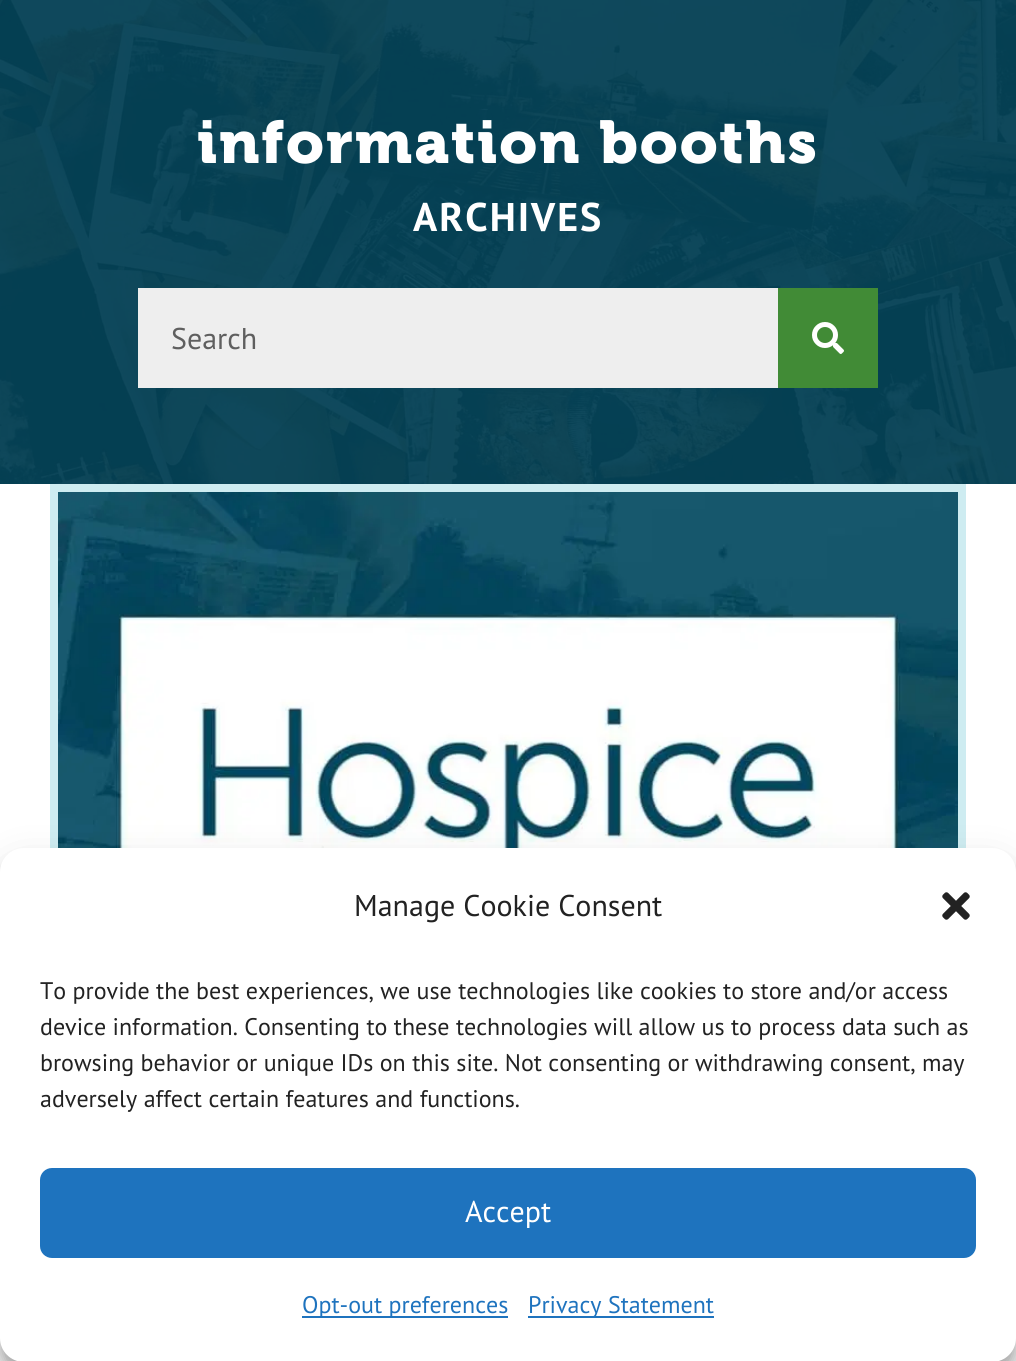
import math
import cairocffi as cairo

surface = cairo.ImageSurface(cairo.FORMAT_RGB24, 1016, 1361)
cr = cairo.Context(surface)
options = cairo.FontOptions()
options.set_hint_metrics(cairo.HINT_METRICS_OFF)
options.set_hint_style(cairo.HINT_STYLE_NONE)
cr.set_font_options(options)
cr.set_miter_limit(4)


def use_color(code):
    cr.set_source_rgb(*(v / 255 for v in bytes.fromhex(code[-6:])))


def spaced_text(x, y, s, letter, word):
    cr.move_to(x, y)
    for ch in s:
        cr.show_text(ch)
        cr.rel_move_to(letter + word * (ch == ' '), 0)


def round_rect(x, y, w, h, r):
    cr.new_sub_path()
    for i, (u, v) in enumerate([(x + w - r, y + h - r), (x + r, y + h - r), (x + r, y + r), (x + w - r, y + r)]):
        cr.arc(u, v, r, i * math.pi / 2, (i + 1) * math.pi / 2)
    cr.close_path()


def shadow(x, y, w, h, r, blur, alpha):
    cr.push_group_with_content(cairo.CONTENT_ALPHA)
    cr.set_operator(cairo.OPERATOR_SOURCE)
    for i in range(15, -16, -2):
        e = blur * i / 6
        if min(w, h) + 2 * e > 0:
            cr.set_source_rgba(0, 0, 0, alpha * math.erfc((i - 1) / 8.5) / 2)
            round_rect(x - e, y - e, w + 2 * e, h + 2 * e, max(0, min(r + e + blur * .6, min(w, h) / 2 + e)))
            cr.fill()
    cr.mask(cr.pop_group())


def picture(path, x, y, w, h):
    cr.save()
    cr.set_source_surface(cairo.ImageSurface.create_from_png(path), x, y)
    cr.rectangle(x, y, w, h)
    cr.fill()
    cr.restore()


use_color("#ffffff")
cr.paint()
picture("img1.png", 0, 0, 1016, 484)
cr.select_font_face("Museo", cairo.FONT_SLANT_NORMAL, cairo.FONT_WEIGHT_BOLD)
cr.set_font_size(60)
use_color("#ffffff")
spaced_text(197, 163, "information booths", 2, 0)
cr.select_font_face("PT Sans", cairo.FONT_SLANT_NORMAL, cairo.FONT_WEIGHT_BOLD)
cr.set_font_size(40)
spaced_text(413, 231, "ARCHIVES", 2, 0)
use_color("#eeeeee")
cr.rectangle(138, 288, 640, 100)
cr.fill()
cr.select_font_face("PT Sans")
cr.set_font_size(30)
use_color("#5f5f5f")
cr.move_to(171, 349)
cr.show_text("Search")
use_color("#418b36")
cr.rectangle(778, 288, 100, 100)
cr.fill()
picture("img2.png", 812, 322, 32, 32)
cr.rectangle(54, 488, 908, 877)
use_color("#ceecf1")
cr.set_line_width(8)
cr.stroke()
picture("img3.png", 58, 492, 900, 356)
use_color("#000000")
shadow(0, 860, 1016, 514, 24, 6, 0.23)
shadow(0, 868, 1016, 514, 24, 20, 0.19)
use_color("#ffffff")
round_rect(0, 848, 1016, 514, 24)
cr.fill()
use_color("#222222")
cr.move_to(354, 916)
cr.show_text("Manage Cookie Consent")
picture("img4.png", 942, 892, 28, 28)
cr.set_font_size(24)
cr.move_to(40, 999)
cr.show_text("To provide the best experiences, we use technologies like cookies to store and/or access")
cr.move_to(40, 1035)
cr.show_text("device information. Consenting to these technologies will allow us to process data such as")
cr.move_to(40, 1071)
cr.show_text("browsing behavior or unique IDs on this site. Not consenting or withdrawing consent, may")
cr.move_to(40, 1107)
cr.show_text("adversely affect certain features and functions.")
use_color("#1e73be")
round_rect(41, 1169, 934, 88, 11)
cr.fill_preserve()
cr.set_line_width(2)
cr.stroke()
cr.set_font_size(30)
use_color("#ffffff")
cr.move_to(465, 1222)
cr.show_text("Accept")
use_color("#1e73be")
cr.rectangle(302, 1316, 206, 2)
cr.fill()
cr.set_font_size(24)
cr.move_to(302, 1313)
cr.show_text("Opt-out preferences")
cr.rectangle(528, 1316, 186, 2)
cr.fill()
cr.move_to(528, 1313)
cr.show_text("Privacy Statement")
surface.write_to_png("result.png")
